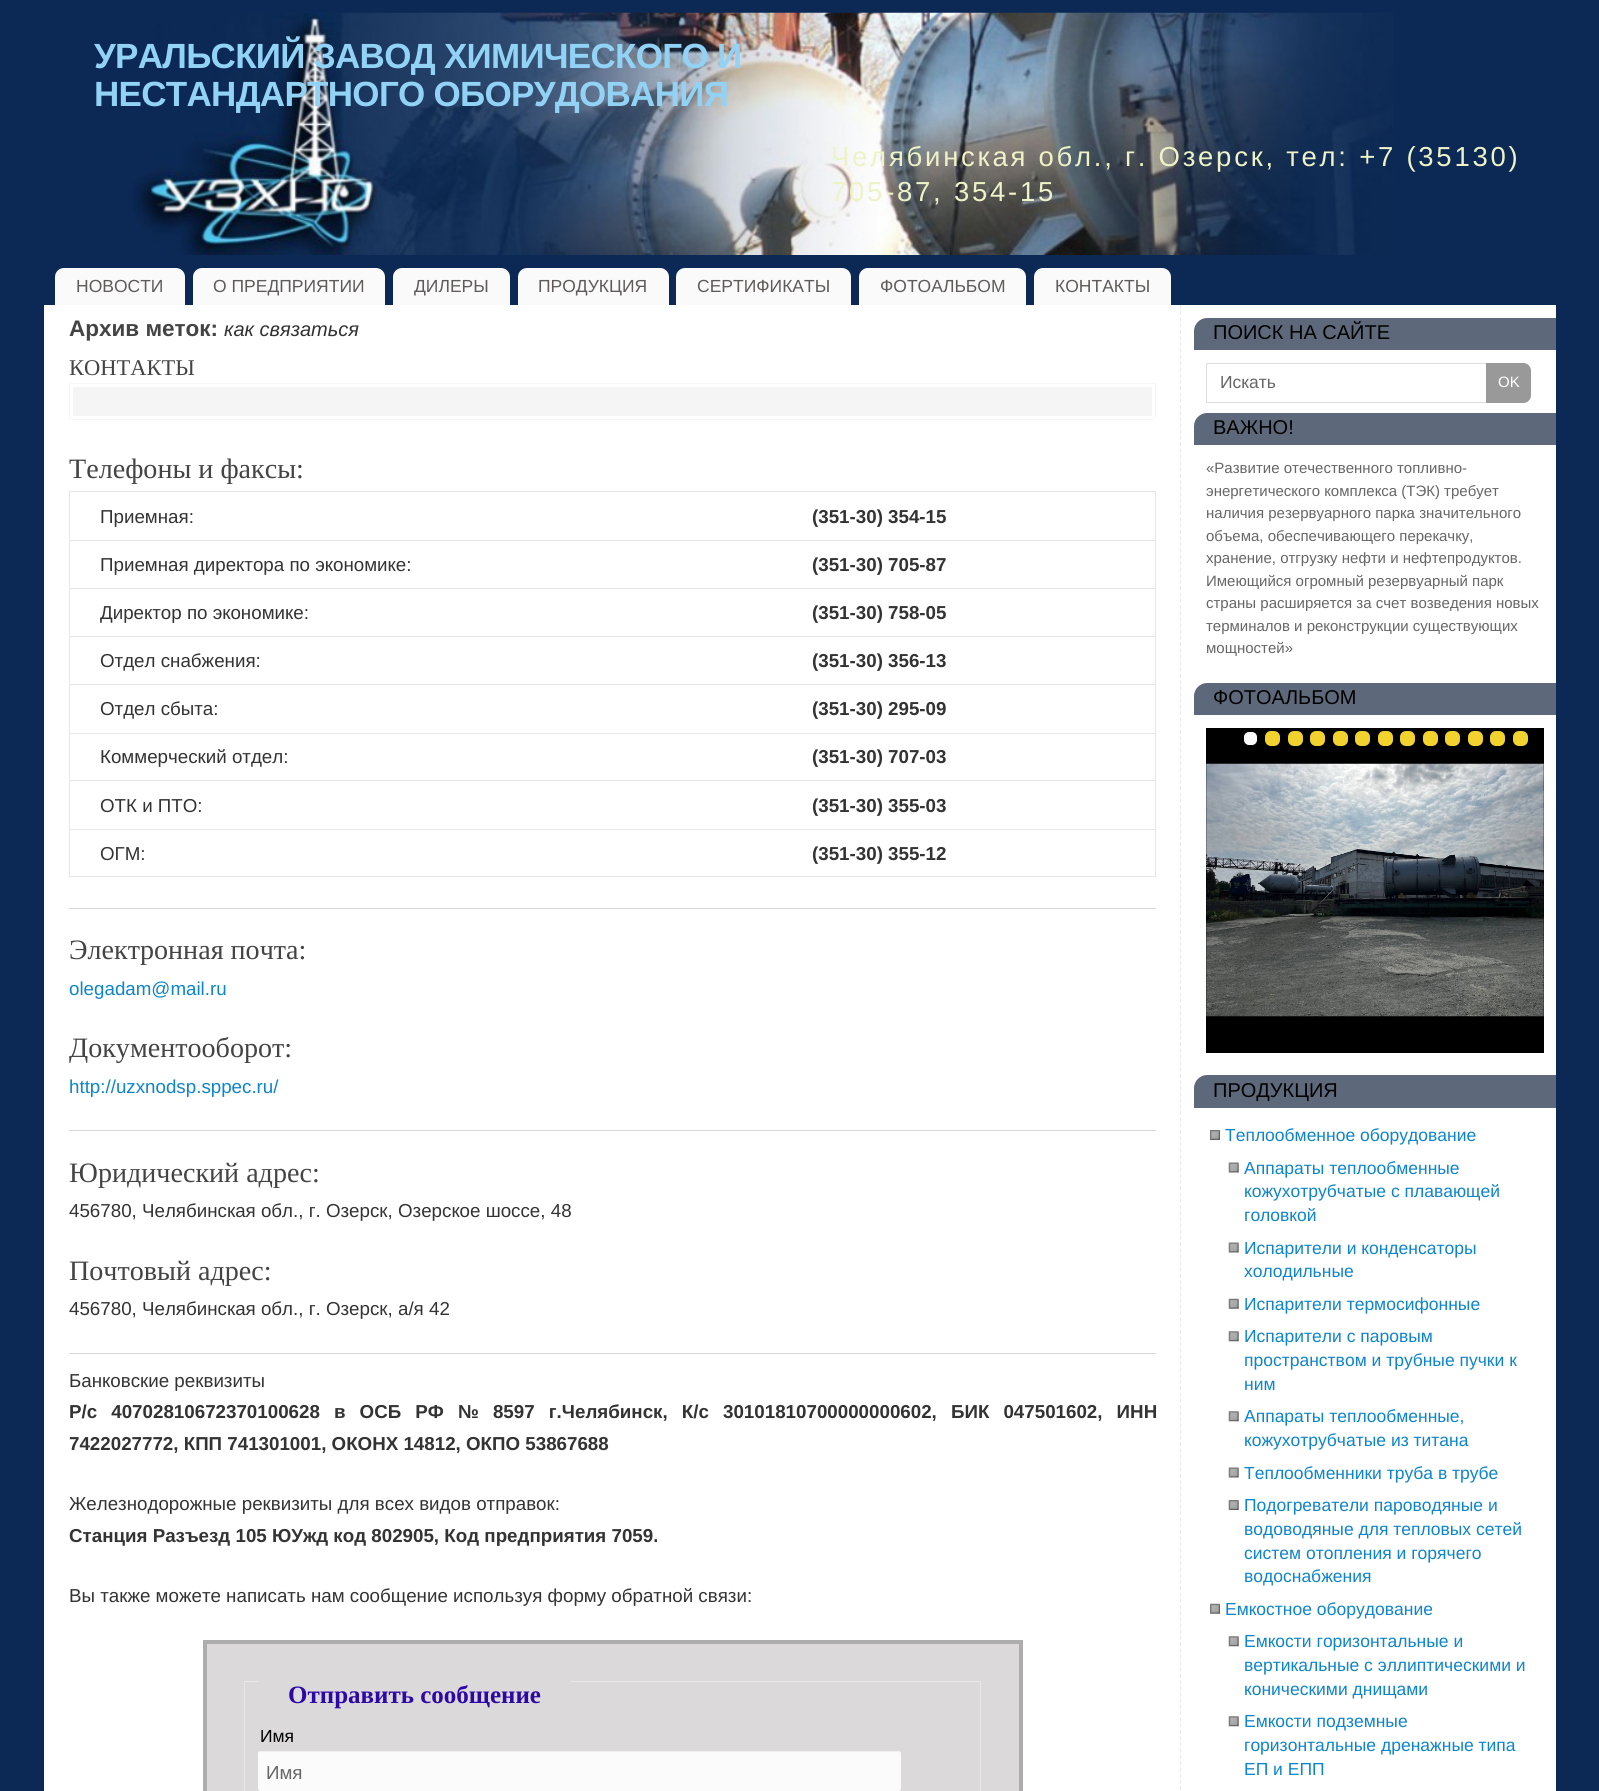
import math
import cairocffi as cairo

surface = cairo.ImageSurface(cairo.FORMAT_RGB24, 1599, 1791)
cr = cairo.Context(surface)
options = cairo.FontOptions()
options.set_hint_metrics(cairo.HINT_METRICS_OFF)
options.set_hint_style(cairo.HINT_STYLE_NONE)
cr.set_font_options(options)
cr.set_miter_limit(4)


def use_color(code):
    cr.set_source_rgb(*(v / 255 for v in bytes.fromhex(code[-6:])))


def spaced_text(x, y, s, letter, word):
    cr.move_to(x, y)
    for ch in s:
        cr.show_text(ch)
        cr.rel_move_to(letter + word * (ch == ' '), 0)


def round_rect(x, y, w, h, r):
    cr.new_sub_path()
    for i, (u, v) in enumerate([(x + w - r, y + h - r), (x + r, y + h - r), (x + r, y + r), (x + w - r, y + r)]):
        cr.arc(u, v, r, i * math.pi / 2, (i + 1) * math.pi / 2)
    cr.close_path()


def shadow(x, y, w, h, r, blur, alpha):
    cr.push_group_with_content(cairo.CONTENT_ALPHA)
    cr.set_operator(cairo.OPERATOR_SOURCE)
    for i in range(15, -16, -2):
        e = blur * i / 6
        if min(w, h) + 2 * e > 0:
            cr.set_source_rgba(0, 0, 0, alpha * math.erfc((i - 1) / 8.5) / 2)
            round_rect(x - e, y - e, w + 2 * e, h + 2 * e, max(0, min(r + e + blur * .6, min(w, h) / 2 + e)))
            cr.fill()
    cr.mask(cr.pop_group())


def picture(path, x, y, w, h):
    cr.save()
    cr.set_source_surface(cairo.ImageSurface.create_from_png(path), x, y)
    cr.rectangle(x, y, w, h)
    cr.fill()
    cr.restore()


use_color("#0c2955")
cr.paint()
picture("img1.png", 132, 12, 1261, 243)
cr.select_font_face("Liberation Sans", cairo.FONT_SLANT_NORMAL, cairo.FONT_WEIGHT_BOLD)
cr.set_font_size(35)
use_color("#91d2f5")
spaced_text(94, 68, "УРАЛЬСКИЙ ЗАВОД ХИМИЧЕСКОГО И", -0.7, 0)
spaced_text(94, 106, "НЕСТАНДАРТНОГО ОБОРУДОВАНИЯ", -0.7, 0)
cr.select_font_face("Liberation Sans")
cr.set_font_size(27.5)
use_color("#edf3c6")
spaced_text(831, 166, "Челябинская обл., г. Озерск, тел: +7 (35130)", 2.75, 0)
spaced_text(831, 201, "705-87, 354-15", 2.75, 0)
use_color("#fafafa")
cr.new_path()
cr.move_to(64, 268)
cr.line_to(176, 268)
cr.curve_to(181, 268, 185, 272, 185, 277)
cr.line_to(185, 305)
cr.line_to(55, 305)
cr.line_to(55, 277)
cr.curve_to(55, 272, 59, 268, 64, 268)
cr.close_path()
cr.fill()
cr.set_font_size(17.5)
use_color("#5f5b5b")
cr.move_to(76, 292)
cr.show_text("НОВОСТИ")
use_color("#fafafa")
cr.new_path()
cr.move_to(202, 268)
cr.line_to(376, 268)
cr.curve_to(381, 268, 385, 272, 385, 277)
cr.line_to(385, 305)
cr.line_to(193, 305)
cr.line_to(193, 277)
cr.curve_to(193, 272, 197, 268, 202, 268)
cr.close_path()
cr.fill()
use_color("#5f5b5b")
cr.move_to(213, 292)
cr.show_text("О ПРЕДПРИЯТИИ")
use_color("#fafafa")
cr.new_path()
cr.move_to(402, 268)
cr.line_to(501, 268)
cr.curve_to(506, 268, 510, 272, 510, 277)
cr.line_to(510, 305)
cr.line_to(393, 305)
cr.line_to(393, 277)
cr.curve_to(393, 272, 397, 268, 402, 268)
cr.close_path()
cr.fill()
use_color("#5f5b5b")
cr.move_to(414, 292)
cr.show_text("ДИЛЕРЫ")
use_color("#fafafa")
cr.new_path()
cr.move_to(527, 268)
cr.line_to(660, 268)
cr.curve_to(665, 268, 669, 272, 669, 277)
cr.line_to(669, 305)
cr.line_to(518, 305)
cr.line_to(518, 277)
cr.curve_to(518, 272, 522, 268, 527, 268)
cr.close_path()
cr.fill()
use_color("#5f5b5b")
cr.move_to(538, 292)
cr.show_text("ПРОДУКЦИЯ")
use_color("#fafafa")
cr.new_path()
cr.move_to(685, 268)
cr.line_to(842, 268)
cr.curve_to(847, 268, 851, 272, 851, 277)
cr.line_to(851, 305)
cr.line_to(676, 305)
cr.line_to(676, 277)
cr.curve_to(676, 272, 680, 268, 685, 268)
cr.close_path()
cr.fill()
use_color("#5f5b5b")
cr.move_to(697, 292)
cr.show_text("СЕРТИФИКАТЫ")
use_color("#fafafa")
cr.new_path()
cr.move_to(868, 268)
cr.line_to(1017, 268)
cr.curve_to(1022, 268, 1026, 272, 1026, 277)
cr.line_to(1026, 305)
cr.line_to(859, 305)
cr.line_to(859, 277)
cr.curve_to(859, 272, 863, 268, 868, 268)
cr.close_path()
cr.fill()
use_color("#5f5b5b")
cr.move_to(880, 292)
cr.show_text("ФОТОАЛЬБОМ")
use_color("#fafafa")
cr.new_path()
cr.move_to(1043, 268)
cr.line_to(1162, 268)
cr.curve_to(1167, 268, 1171, 272, 1171, 277)
cr.line_to(1171, 305)
cr.line_to(1034, 305)
cr.line_to(1034, 277)
cr.curve_to(1034, 272, 1038, 268, 1043, 268)
cr.close_path()
cr.fill()
use_color("#5f5b5b")
cr.move_to(1055, 292)
cr.show_text("КОНТАКТЫ")
use_color("#ffffff")
cr.rectangle(44, 305, 1512, 1486)
cr.fill()
cr.select_font_face("Liberation Sans", cairo.FONT_SLANT_NORMAL, cairo.FONT_WEIGHT_BOLD)
cr.set_font_size(22.5)
use_color("#444444")
cr.move_to(69, 336)
cr.show_text("Архив меток:")
cr.select_font_face("Liberation Sans", cairo.FONT_SLANT_ITALIC)
cr.set_font_size(20)
use_color("#333333")
cr.move_to(224, 336)
cr.show_text("как связаться")
cr.select_font_face("Liberation Serif")
cr.set_font_size(22.5)
use_color("#444444")
cr.move_to(69, 375)
cr.show_text("КОНТАКТЫ")
use_color("#dddddd")
shadow(70, 384, 1085, 35, 0, 0.5, 1)
use_color("#f5f5f5")
cr.rectangle(71.5, 385.5, 1082, 32)
cr.fill_preserve()
use_color("#ffffff")
cr.set_line_width(3)
cr.stroke()
cr.set_font_size(28.1)
use_color("#444444")
cr.move_to(69, 478)
cr.show_text("Телефоны и факсы:")
use_color("#e7e7e7")
cr.rectangle(69, 491, 1087, 1)
cr.fill()
cr.rectangle(1155, 491, 1, 387)
cr.fill()
cr.rectangle(69, 876, 1087, 1)
cr.fill()
cr.rectangle(69, 491, 1, 387)
cr.fill()
cr.select_font_face("Liberation Sans")
cr.set_font_size(18.75)
use_color("#333333")
cr.move_to(100, 523)
cr.show_text("Приемная:")
cr.select_font_face("Liberation Sans", cairo.FONT_SLANT_NORMAL, cairo.FONT_WEIGHT_BOLD)
cr.move_to(812, 523)
cr.show_text("(351-30) 354-15")
cr.select_font_face("Liberation Sans")
cr.move_to(100, 571)
cr.show_text("Приемная директора по экономике:")
use_color("#e7e7e7")
cr.rectangle(69, 540, 1087, 1)
cr.fill()
cr.select_font_face("Liberation Sans", cairo.FONT_SLANT_NORMAL, cairo.FONT_WEIGHT_BOLD)
use_color("#333333")
cr.move_to(812, 571)
cr.show_text("(351-30) 705-87")
cr.select_font_face("Liberation Sans")
cr.move_to(100, 619)
cr.show_text("Директор по экономике:")
use_color("#e7e7e7")
cr.rectangle(69, 588, 1087, 1)
cr.fill()
cr.select_font_face("Liberation Sans", cairo.FONT_SLANT_NORMAL, cairo.FONT_WEIGHT_BOLD)
use_color("#333333")
cr.move_to(812, 619)
cr.show_text("(351-30) 758-05")
cr.select_font_face("Liberation Sans")
cr.move_to(100, 667)
cr.show_text("Отдел снабжения:")
use_color("#e7e7e7")
cr.rectangle(69, 636, 1087, 1)
cr.fill()
cr.select_font_face("Liberation Sans", cairo.FONT_SLANT_NORMAL, cairo.FONT_WEIGHT_BOLD)
use_color("#333333")
cr.move_to(812, 667)
cr.show_text("(351-30) 356-13")
cr.select_font_face("Liberation Sans")
cr.move_to(100, 715)
cr.show_text("Отдел сбыта:")
use_color("#e7e7e7")
cr.rectangle(69, 684, 1087, 1)
cr.fill()
cr.select_font_face("Liberation Sans", cairo.FONT_SLANT_NORMAL, cairo.FONT_WEIGHT_BOLD)
use_color("#333333")
cr.move_to(812, 715)
cr.show_text("(351-30) 295-09")
cr.select_font_face("Liberation Sans")
cr.move_to(100, 763)
cr.show_text("Коммерческий отдел:")
use_color("#e7e7e7")
cr.rectangle(69, 733, 1087, 1)
cr.fill()
cr.select_font_face("Liberation Sans", cairo.FONT_SLANT_NORMAL, cairo.FONT_WEIGHT_BOLD)
use_color("#333333")
cr.move_to(812, 763)
cr.show_text("(351-30) 707-03")
cr.select_font_face("Liberation Sans")
cr.move_to(100, 812)
cr.show_text("ОТК и ПТО:")
use_color("#e7e7e7")
cr.rectangle(69, 780, 1087, 1)
cr.fill()
cr.select_font_face("Liberation Sans", cairo.FONT_SLANT_NORMAL, cairo.FONT_WEIGHT_BOLD)
use_color("#333333")
cr.move_to(812, 812)
cr.show_text("(351-30) 355-03")
cr.select_font_face("Liberation Sans")
cr.move_to(100, 860)
cr.show_text("ОГМ:")
use_color("#e7e7e7")
cr.rectangle(69, 829, 1087, 1)
cr.fill()
cr.select_font_face("Liberation Sans", cairo.FONT_SLANT_NORMAL, cairo.FONT_WEIGHT_BOLD)
use_color("#333333")
cr.move_to(812, 860)
cr.show_text("(351-30) 355-12")
use_color("#d7d7d7")
cr.rectangle(69, 908, 1087, 1)
cr.fill()
cr.select_font_face("Liberation Serif")
cr.set_font_size(28.1)
use_color("#444444")
cr.move_to(69, 959)
cr.show_text("Электронная почта:")
cr.select_font_face("Liberation Sans")
cr.set_font_size(18.75)
use_color("#0d85cc")
cr.move_to(69, 995)
cr.show_text("olegadam@mail.ru")
cr.select_font_face("Liberation Serif")
cr.set_font_size(28.1)
use_color("#444444")
cr.move_to(69, 1057)
cr.show_text("Документооборот:")
cr.select_font_face("Liberation Sans")
cr.set_font_size(18.75)
use_color("#0d85cc")
cr.move_to(69, 1093)
cr.show_text("http://uzxnodsp.sppec.ru/")
use_color("#d7d7d7")
cr.rectangle(69, 1130, 1087, 1)
cr.fill()
cr.select_font_face("Liberation Serif")
cr.set_font_size(28.1)
use_color("#444444")
cr.move_to(69, 1182)
cr.show_text("Юридический адрес:")
cr.select_font_face("Liberation Sans")
cr.set_font_size(18.75)
use_color("#333333")
cr.move_to(69, 1217)
cr.show_text("456780, Челябинская обл., г. Озерск, Озерское шоссе, 48")
cr.select_font_face("Liberation Serif")
cr.set_font_size(28.1)
use_color("#444444")
cr.move_to(69, 1280)
cr.show_text("Почтовый адрес:")
cr.select_font_face("Liberation Sans")
cr.set_font_size(18.75)
use_color("#333333")
cr.move_to(69, 1315)
cr.show_text("456780, Челябинская обл., г. Озерск, а/я 42")
use_color("#d7d7d7")
cr.rectangle(69, 1353, 1087, 1)
cr.fill()
use_color("#333333")
cr.move_to(69, 1387)
cr.show_text("Банковские реквизиты")
cr.select_font_face("Liberation Sans", cairo.FONT_SLANT_NORMAL, cairo.FONT_WEIGHT_BOLD)
spaced_text(69, 1418, "Р/с 40702810672370100628 в ОСБ РФ № 8597 г.Челябинск, К/с 30101810700000000602, БИК 047501602, ИНН", 0, 8.9)
cr.move_to(69, 1450)
cr.show_text("7422027772, КПП 741301001, ОКОНХ 14812, ОКПО 53867688")
cr.select_font_face("Liberation Sans")
cr.move_to(69, 1510)
cr.show_text("Железнодорожные реквизиты для всех видов отправок:")
cr.select_font_face("Liberation Sans", cairo.FONT_SLANT_NORMAL, cairo.FONT_WEIGHT_BOLD)
cr.move_to(69, 1542)
cr.show_text("Станция Разъезд 105 ЮУжд код 802905, Код предприятия 7059.")
cr.select_font_face("Liberation Sans")
cr.move_to(69, 1602)
cr.show_text("Вы также можете написать нам сообщение используя форму обратной связи:")
use_color("#dbd9d9")
cr.rectangle(205, 1642, 816, 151)
cr.fill_preserve()
use_color("#adadad")
cr.set_line_width(4)
cr.stroke()
cr.rectangle(244.5, 1681.5, 736, 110)
use_color("#e7e7e7")
cr.set_line_width(1)
cr.stroke()
use_color("#dbd9d9")
cr.rectangle(258, 1681, 312, 1)
cr.fill()
cr.select_font_face("Liberation Serif", cairo.FONT_SLANT_NORMAL, cairo.FONT_WEIGHT_BOLD)
cr.set_font_size(25)
use_color("#2e08a6")
cr.move_to(288, 1703)
cr.show_text("Отправить сообщение")
cr.select_font_face("Liberation Sans")
cr.set_font_size(17.5)
use_color("#000000")
cr.move_to(260, 1742)
cr.show_text("Имя")
use_color("#fbfbfb")
round_rect(258, 1751, 643, 40, 2.5)
cr.fill()
use_color("#f0f0f0")
cr.rectangle(259, 1751, 641, 1)
cr.fill()
cr.set_font_size(18.75)
use_color("#666666")
cr.move_to(266, 1779)
cr.show_text("Имя")
cr.new_path()
cr.move_to(1180.5, 305)
cr.line_to(1180.5, 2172.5)
use_color("#eaeaea")
cr.set_line_width(1.2)
cr.set_dash([3.75, 2.5])
cr.stroke()
use_color("#5d697b")
cr.new_path()
cr.move_to(1207, 318)
cr.line_to(1556, 318)
cr.line_to(1556, 350)
cr.line_to(1194, 350)
cr.line_to(1194, 331)
cr.curve_to(1194, 324, 1200, 318, 1207, 318)
cr.close_path()
cr.fill()
cr.set_font_size(20)
use_color("#000000")
cr.move_to(1213, 339)
cr.show_text("ПОИСК НА САЙТЕ")
cr.new_path()
cr.move_to(1206.5, 363.5)
cr.line_to(1523, 363.5)
cr.curve_to(1527, 363.5, 1530.5, 367, 1530.5, 371)
cr.line_to(1530.5, 395)
cr.curve_to(1530.5, 399, 1527, 402.5, 1523, 402.5)
cr.line_to(1206.5, 402.5)
cr.close_path()
use_color("#dddddd")
cr.set_line_width(1)
cr.set_dash([])
cr.stroke()
cr.set_font_size(17.5)
use_color("#666666")
cr.move_to(1220, 388)
cr.show_text("Искать")
use_color("#999999")
cr.new_path()
cr.move_to(1486, 363)
cr.line_to(1523, 363)
cr.curve_to(1527.5, 363, 1531, 366.5, 1531, 371)
cr.line_to(1531, 395)
cr.curve_to(1531, 399.5, 1527.5, 403, 1523, 403)
cr.line_to(1486, 403)
cr.close_path()
cr.fill()
cr.set_font_size(15)
use_color("#ffffff")
cr.move_to(1498, 387)
cr.show_text("OK")
use_color("#5d697b")
cr.new_path()
cr.move_to(1207, 413)
cr.line_to(1556, 413)
cr.line_to(1556, 445)
cr.line_to(1194, 445)
cr.line_to(1194, 426)
cr.curve_to(1194, 419, 1200, 413, 1207, 413)
cr.close_path()
cr.fill()
cr.set_font_size(20)
use_color("#000000")
cr.move_to(1213, 434)
cr.show_text("ВАЖНО!")
cr.set_font_size(15)
use_color("#666666")
cr.move_to(1206, 473)
cr.show_text("«Развитие отечественного топливно-")
cr.move_to(1206, 496)
cr.show_text("энергетического комплекса (ТЭК) требует")
cr.move_to(1206, 518)
cr.show_text("наличия резервуарного парка значительного")
cr.move_to(1206, 541)
cr.show_text("объема, обеспечивающего перекачку,")
cr.move_to(1206, 563)
cr.show_text("хранение, отгрузку нефти и нефтепродуктов.")
cr.move_to(1206, 586)
cr.show_text("Имеющийся огромный резервуарный парк")
cr.move_to(1206, 608)
cr.show_text("страны расширяется за счет возведения новых")
cr.move_to(1206, 631)
cr.show_text("терминалов и реконструкции существующих")
cr.move_to(1206, 653)
cr.show_text("мощностей»")
use_color("#5d697b")
cr.new_path()
cr.move_to(1207, 683)
cr.line_to(1556, 683)
cr.line_to(1556, 715)
cr.line_to(1194, 715)
cr.line_to(1194, 696)
cr.curve_to(1194, 689, 1200, 683, 1207, 683)
cr.close_path()
cr.fill()
cr.set_font_size(20)
use_color("#000000")
cr.move_to(1213, 704)
cr.show_text("ФОТОАЛЬБОМ")
cr.rectangle(1206, 728, 338, 325)
cr.fill()
use_color("#ffffff")
round_rect(1243.5, 731.5, 14, 14, 5.5)
cr.fill_preserve()
use_color("#000000")
cr.stroke()
use_color("#f2d22e")
round_rect(1265, 731, 15, 15, 6)
cr.fill()
round_rect(1288, 731, 15, 15, 6)
cr.fill()
round_rect(1310, 731, 15, 15, 6)
cr.fill()
round_rect(1333, 731, 15, 15, 6)
cr.fill()
round_rect(1355, 731, 15, 15, 6)
cr.fill()
round_rect(1378, 731, 15, 15, 6)
cr.fill()
round_rect(1400, 731, 15, 15, 6)
cr.fill()
round_rect(1423, 731, 15, 15, 6)
cr.fill()
round_rect(1445, 731, 15, 15, 6)
cr.fill()
round_rect(1468, 731, 15, 15, 6)
cr.fill()
round_rect(1490, 731, 15, 15, 6)
cr.fill()
round_rect(1513, 731, 15, 15, 6)
cr.fill()
picture("img2.png", 1206, 763, 338, 254)
use_color("#5d697b")
cr.new_path()
cr.move_to(1207, 1075)
cr.line_to(1556, 1075)
cr.line_to(1556, 1108)
cr.line_to(1194, 1108)
cr.line_to(1194, 1088)
cr.curve_to(1194, 1081, 1200, 1075, 1207, 1075)
cr.close_path()
cr.fill()
use_color("#000000")
cr.move_to(1213, 1097)
cr.show_text("ПРОДУКЦИЯ")
picture("img3.png", 1210, 1130, 10, 10)
cr.set_font_size(17.5)
use_color("#0d85cc")
cr.move_to(1225, 1141)
cr.show_text("Теплообменное оборудование")
picture("img4.png", 1228, 1162, 11, 11)
cr.move_to(1244, 1174)
cr.show_text("Аппараты теплообменные")
cr.move_to(1244, 1197)
cr.show_text("кожухотрубчатые с плавающей")
cr.move_to(1244, 1221)
cr.show_text("головкой")
picture("img4.png", 1228, 1242, 11, 11)
cr.move_to(1244, 1254)
cr.show_text("Испарители и конденсаторы")
cr.move_to(1244, 1277)
cr.show_text("холодильные")
picture("img5.png", 1228, 1298, 11, 11)
cr.move_to(1244, 1310)
cr.show_text("Испарители термосифонные")
picture("img6.png", 1228, 1331, 11, 11)
cr.move_to(1244, 1342)
cr.show_text("Испарители с паровым")
cr.move_to(1244, 1366)
cr.show_text("пространством и трубные пучки к")
cr.move_to(1244, 1390)
cr.show_text("ним")
picture("img6.png", 1228, 1411, 11, 11)
cr.move_to(1244, 1422)
cr.show_text("Аппараты теплообменные,")
cr.move_to(1244, 1446)
cr.show_text("кожухотрубчатые из титана")
picture("img4.png", 1228, 1467, 11, 11)
cr.move_to(1244, 1479)
cr.show_text("Теплообменники труба в трубе")
picture("img7.png", 1228, 1500, 11, 10)
cr.move_to(1244, 1511)
cr.show_text("Подогреватели пароводяные и")
cr.move_to(1244, 1535)
cr.show_text("водоводяные для тепловых сетей")
cr.move_to(1244, 1559)
cr.show_text("систем отопления и горячего")
cr.move_to(1244, 1582)
cr.show_text("водоснабжения")
picture("img8.png", 1210, 1603, 10, 11)
cr.move_to(1225, 1615)
cr.show_text("Емкостное оборудование")
picture("img6.png", 1228, 1636, 11, 11)
cr.move_to(1244, 1647)
cr.show_text("Емкости горизонтальные и")
cr.move_to(1244, 1671)
cr.show_text("вертикальные с эллиптическими и")
cr.move_to(1244, 1695)
cr.show_text("коническими днищами")
picture("img6.png", 1228, 1716, 11, 11)
cr.move_to(1244, 1727)
cr.show_text("Емкости подземные")
cr.move_to(1244, 1751)
cr.show_text("горизонтальные дренажные типа")
cr.move_to(1244, 1775)
cr.show_text("ЕП и ЕПП")
surface.write_to_png("result.png")
